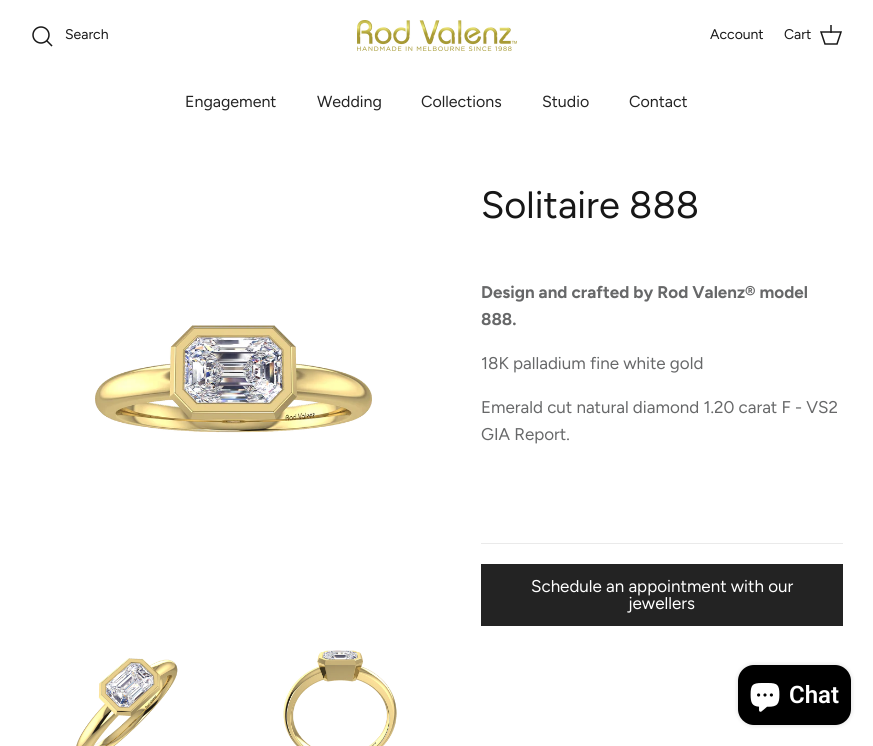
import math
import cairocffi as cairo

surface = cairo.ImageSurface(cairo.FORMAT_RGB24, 873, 746)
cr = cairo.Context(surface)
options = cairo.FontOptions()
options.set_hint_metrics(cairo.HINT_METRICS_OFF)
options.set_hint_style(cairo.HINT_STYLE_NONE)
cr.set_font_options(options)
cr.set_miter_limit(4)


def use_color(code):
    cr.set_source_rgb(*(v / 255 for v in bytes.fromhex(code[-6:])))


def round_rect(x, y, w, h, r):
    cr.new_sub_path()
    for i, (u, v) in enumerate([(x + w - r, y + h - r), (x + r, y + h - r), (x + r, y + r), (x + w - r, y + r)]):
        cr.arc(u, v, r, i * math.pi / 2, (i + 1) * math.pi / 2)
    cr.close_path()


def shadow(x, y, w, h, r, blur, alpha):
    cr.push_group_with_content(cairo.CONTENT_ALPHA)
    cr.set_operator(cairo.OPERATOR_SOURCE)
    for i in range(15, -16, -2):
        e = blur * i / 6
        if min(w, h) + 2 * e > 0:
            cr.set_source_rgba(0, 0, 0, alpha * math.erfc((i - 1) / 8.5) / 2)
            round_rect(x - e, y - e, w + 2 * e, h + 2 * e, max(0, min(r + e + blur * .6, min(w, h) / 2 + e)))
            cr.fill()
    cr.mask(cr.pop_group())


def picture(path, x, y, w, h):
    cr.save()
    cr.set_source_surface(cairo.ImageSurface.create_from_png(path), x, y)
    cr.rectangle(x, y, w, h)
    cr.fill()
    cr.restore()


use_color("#ffffff")
cr.paint()
cr.arc(41, 35, 8, 0, 2 * math.pi)
use_color("#171717")
cr.set_line_width(1.5)
cr.stroke()
cr.select_font_face("Figtree")
cr.set_font_size(14)
cr.move_to(65, 39)
cr.show_text("Search")
cr.new_path()
cr.move_to(47, 41)
cr.line_to(51.5, 45.5)
cr.set_line_cap(cairo.LINE_CAP_SQUARE)
cr.stroke()
picture("img1.png", 357, 20, 160, 31)
cr.move_to(710, 39)
cr.show_text("Account")
cr.move_to(784, 39)
cr.show_text("Cart")
cr.new_path()
cr.move_to(821, 32)
cr.line_to(841, 32)
cr.line_to(837, 44)
cr.line_to(825, 44)
cr.close_path()
cr.set_line_cap(cairo.LINE_CAP_BUTT)
cr.stroke()
cr.set_source_rgba(0.09, 0.09, 0.09, 0.75)
cr.rectangle(830, 25, 2, 8)
cr.fill()
cr.set_font_size(16)
use_color("#232323")
cr.move_to(185, 107)
cr.show_text("Engagement")
cr.move_to(317, 107)
cr.show_text("Wedding")
cr.move_to(421, 107)
cr.show_text("Collections")
cr.move_to(542, 107)
cr.show_text("Studio")
cr.move_to(629, 107)
cr.show_text("Contact")
picture("img2.png", 95, 325, 277, 108)
picture("img3.png", 76, 658, 102, 88)
picture("img4.png", 283, 650, 114, 96)
cr.set_font_size(38)
use_color("#171717")
cr.move_to(481, 218)
cr.show_text("Solitaire 888")
cr.select_font_face("Figtree", cairo.FONT_SLANT_NORMAL, cairo.FONT_WEIGHT_BOLD)
cr.set_font_size(17)
use_color("#676869")
cr.move_to(481, 298)
cr.show_text("Design and crafted by Rod Valenz® model")
cr.move_to(481, 325)
cr.show_text("888.")
cr.select_font_face("Figtree")
cr.move_to(481, 369)
cr.show_text("18K palladium fine white gold")
cr.move_to(481, 413)
cr.show_text("Emerald cut natural diamond 1.20 carat F - VS2")
cr.move_to(481, 440)
cr.show_text("GIA Report.")
use_color("#eaeaea")
cr.rectangle(481, 543, 362, 1)
cr.fill()
use_color("#232323")
cr.rectangle(481, 564, 362, 62)
cr.fill()
use_color("#ffffff")
cr.move_to(531, 592)
cr.show_text("Schedule an appointment with our")
cr.move_to(628, 609)
cr.show_text("jewellers")
use_color("#000000")
shadow(738, 665, 113, 60, 16, 2.5, 0.15)
use_color("#000000")
round_rect(738, 665, 113, 60, 16)
cr.fill()
picture("img5.png", 750, 683, 30, 29)
cr.select_font_face("Roboto SemiBold")
cr.set_font_size(24)
use_color("#ffffff")
cr.move_to(789, 703)
cr.show_text("Chat")
surface.write_to_png("result.png")
